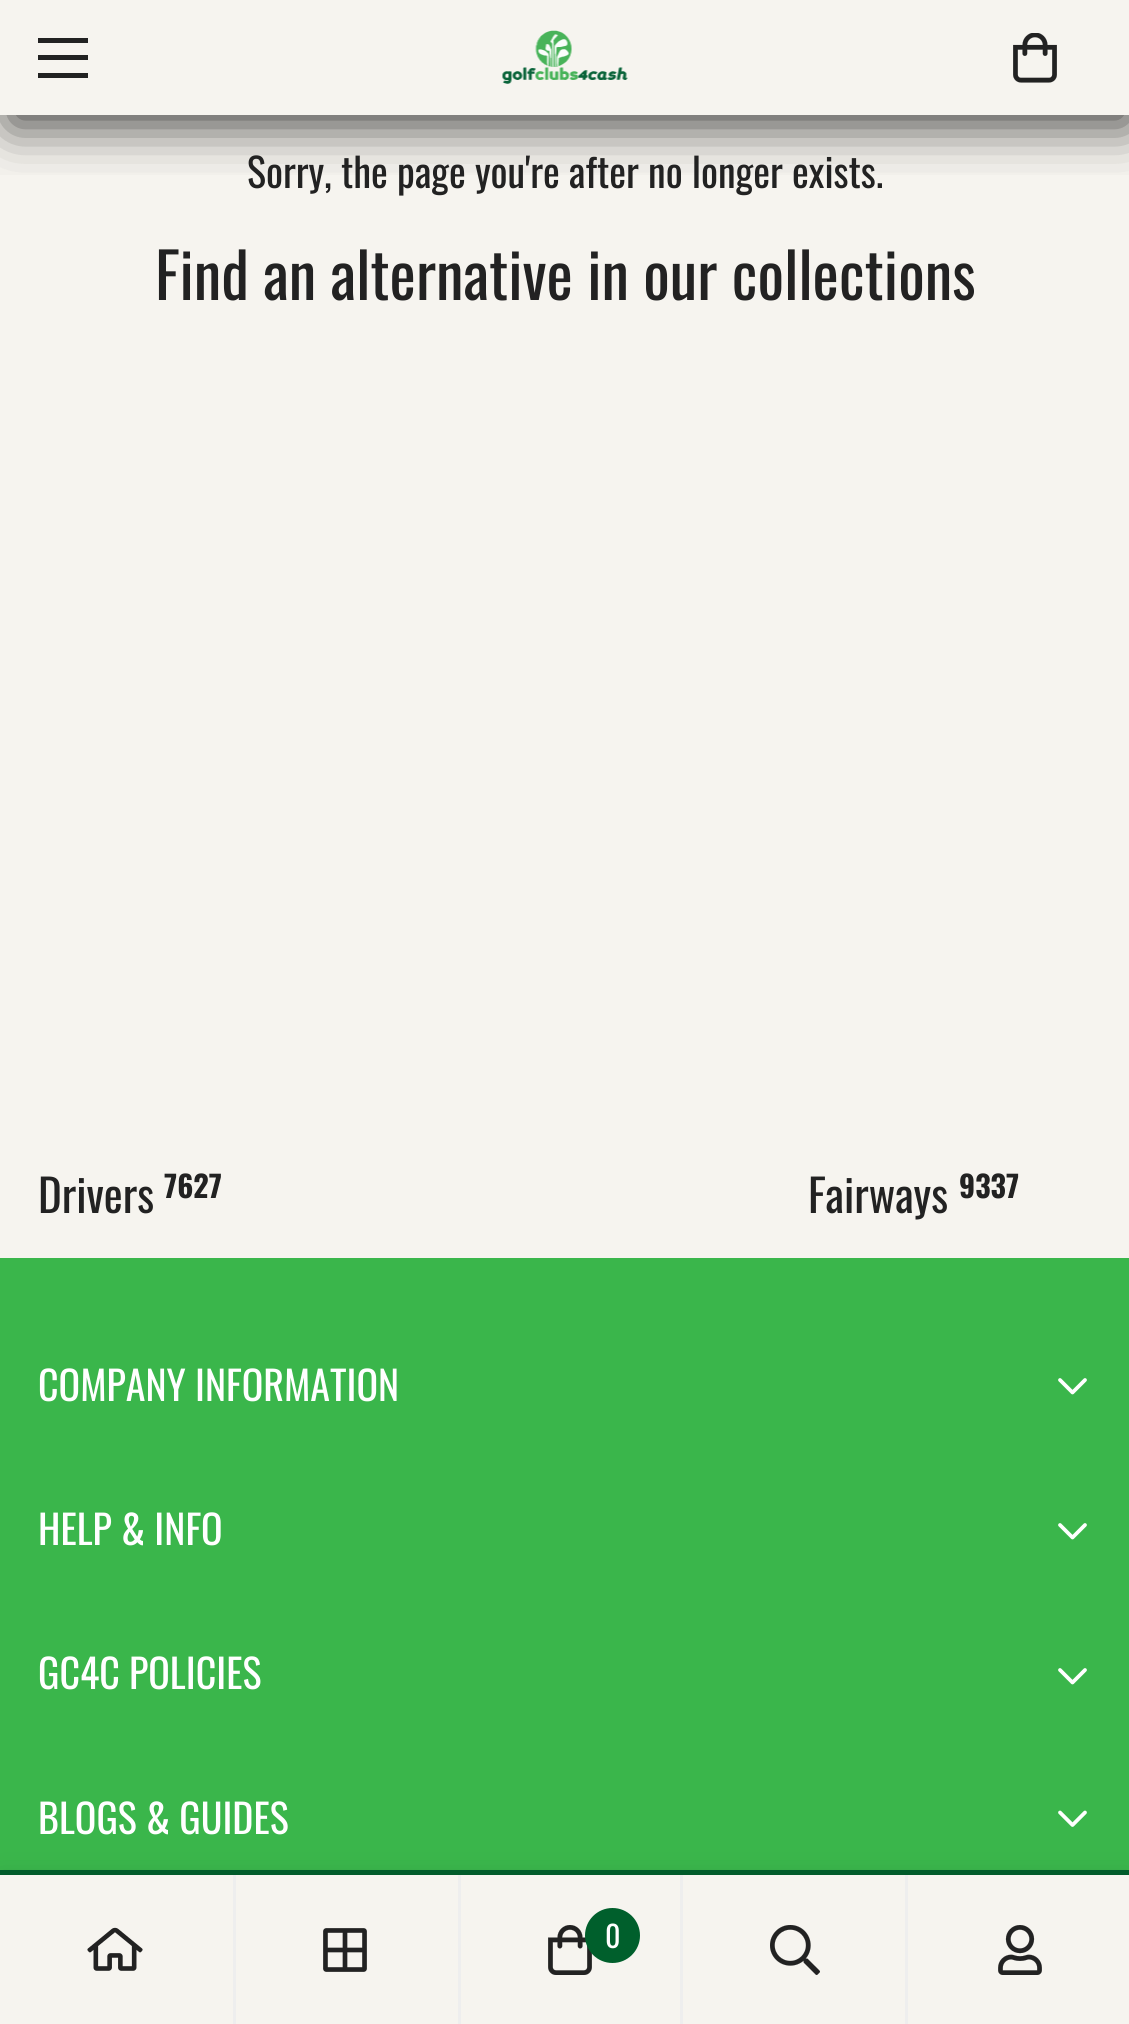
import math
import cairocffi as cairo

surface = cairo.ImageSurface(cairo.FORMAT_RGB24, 1129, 2024)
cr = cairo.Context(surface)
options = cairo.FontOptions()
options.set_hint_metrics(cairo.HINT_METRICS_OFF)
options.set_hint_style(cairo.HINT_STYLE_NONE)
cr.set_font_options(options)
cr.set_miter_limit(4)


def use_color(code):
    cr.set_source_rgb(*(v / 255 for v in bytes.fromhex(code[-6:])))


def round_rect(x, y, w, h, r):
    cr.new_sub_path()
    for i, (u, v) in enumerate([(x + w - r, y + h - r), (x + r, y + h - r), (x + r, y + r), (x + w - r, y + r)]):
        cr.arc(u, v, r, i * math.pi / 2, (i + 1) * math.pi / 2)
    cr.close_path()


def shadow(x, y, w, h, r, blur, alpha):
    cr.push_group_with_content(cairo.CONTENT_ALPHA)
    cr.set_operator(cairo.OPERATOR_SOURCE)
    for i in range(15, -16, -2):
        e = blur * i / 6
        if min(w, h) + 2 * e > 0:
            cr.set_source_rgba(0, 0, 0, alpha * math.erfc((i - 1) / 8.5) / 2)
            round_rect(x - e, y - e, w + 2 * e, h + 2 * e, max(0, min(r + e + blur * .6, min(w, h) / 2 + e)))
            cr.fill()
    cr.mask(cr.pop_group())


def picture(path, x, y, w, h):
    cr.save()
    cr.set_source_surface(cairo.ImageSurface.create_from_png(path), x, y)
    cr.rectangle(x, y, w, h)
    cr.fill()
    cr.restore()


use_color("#f6f4ef")
cr.paint()
cr.save()
cr.rectangle(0, 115, 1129, 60)
cr.clip()
use_color("#000000")
shadow(10, 20, 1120, 105, 0, 26, 0.75)
cr.restore()
use_color("#222222")
cr.rectangle(38, 55, 50, 5)
cr.fill()
cr.rectangle(38, 38, 50, 5)
cr.fill()
cr.rectangle(38, 73, 50, 5)
cr.fill()
picture("img1.png", 502, 30, 126, 54)
picture("img2.png", 1013, 33, 44, 50)
cr.select_font_face("Oswald")
cr.set_font_size(40)
cr.move_to(247, 188)
cr.show_text("Sorry, the page you're after no longer exists.")
cr.set_font_size(62.5)
cr.move_to(155, 300)
cr.show_text("Find an alternative in our collections")
cr.set_font_size(45)
cr.move_to(38, 1213)
cr.show_text("Drivers")
cr.select_font_face("Oswald", cairo.FONT_SLANT_NORMAL, cairo.FONT_WEIGHT_BOLD)
cr.set_font_size(30)
cr.move_to(164, 1198)
cr.show_text("7627")
cr.select_font_face("Oswald")
cr.set_font_size(45)
cr.move_to(808, 1213)
cr.show_text("Fairways")
cr.select_font_face("Oswald", cairo.FONT_SLANT_NORMAL, cairo.FONT_WEIGHT_BOLD)
cr.set_font_size(30)
cr.move_to(959, 1198)
cr.show_text("9337")
use_color("#3ab64b")
cr.rectangle(0, 1258, 1129, 612)
cr.fill()
cr.select_font_face("Oswald")
cr.set_font_size(40)
use_color("#ffffff")
cr.move_to(38, 1401)
cr.show_text("COMPANY INFORMATION")
picture("img3.png", 1058, 1378, 29, 17)
cr.move_to(38, 1545)
cr.show_text("HELP & INFO")
picture("img3.png", 1058, 1523, 29, 17)
cr.move_to(38, 1689)
cr.show_text("GC4C POLICIES")
picture("img3.png", 1058, 1668, 29, 17)
cr.move_to(38, 1834)
cr.show_text("BLOGS & GUIDES")
picture("img4.png", 1058, 1810, 29, 17)
use_color("#005f2c")
cr.rectangle(0, 1870, 1129, 5)
cr.fill()
use_color("#222222")
shadow(0, 1875, 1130, 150, 0, 12.5, 0.12)
use_color("#f6f4ef")
cr.rectangle(0, 1875, 1129, 149)
cr.fill()
use_color("#eeeeee")
cr.rectangle(233, 1875, 3, 149)
cr.fill()
picture("img5.png", 87, 1927, 56, 44)
cr.rectangle(458, 1875, 3, 149)
cr.fill()
picture("img6.png", 323, 1928, 44, 44)
cr.rectangle(680, 1875, 3, 149)
cr.fill()
picture("img7.png", 548, 1925, 44, 50)
use_color("#005f2c")
cr.arc(612.5, 1935.5, 27.5, 0, 2 * math.pi)
cr.fill()
cr.set_font_size(30)
use_color("#ffffff")
cr.move_to(605, 1948)
cr.show_text("0")
use_color("#eeeeee")
cr.rectangle(905, 1875, 3, 149)
cr.fill()
picture("img8.png", 770, 1925, 50, 50)
picture("img9.png", 998, 1925, 44, 50)
surface.write_to_png("result.png")
